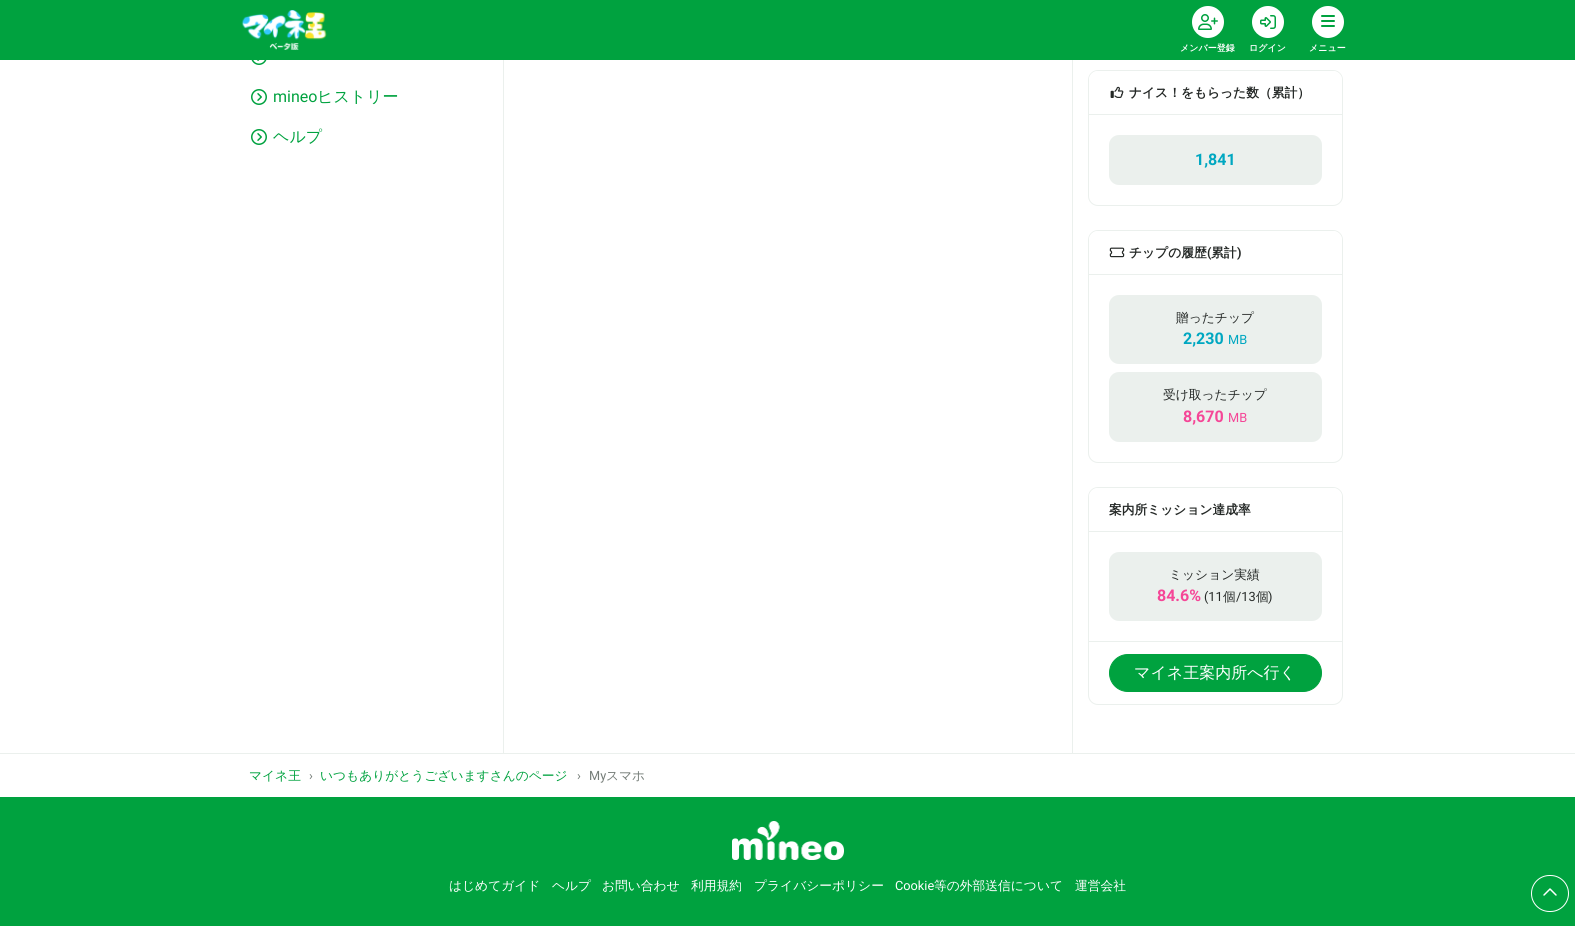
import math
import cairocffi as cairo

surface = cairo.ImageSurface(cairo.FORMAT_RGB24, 1575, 926)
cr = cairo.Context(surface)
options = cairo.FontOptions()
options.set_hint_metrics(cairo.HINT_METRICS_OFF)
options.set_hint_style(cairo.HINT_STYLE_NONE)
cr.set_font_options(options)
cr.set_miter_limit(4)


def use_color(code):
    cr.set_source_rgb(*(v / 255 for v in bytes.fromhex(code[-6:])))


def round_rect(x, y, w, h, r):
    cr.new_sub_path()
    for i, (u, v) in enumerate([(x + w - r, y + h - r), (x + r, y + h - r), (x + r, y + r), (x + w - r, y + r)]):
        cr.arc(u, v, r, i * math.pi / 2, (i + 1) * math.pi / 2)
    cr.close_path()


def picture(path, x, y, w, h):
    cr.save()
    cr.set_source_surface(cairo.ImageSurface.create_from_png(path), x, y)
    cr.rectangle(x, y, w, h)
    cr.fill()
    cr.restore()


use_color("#ffffff")
cr.paint()
use_color("#00a23f")
cr.rectangle(0, 0, 1575, 60)
cr.fill()
picture("img1.png", 241, 10, 86, 40)
picture("img2.png", 1192, 6, 32, 32)
picture("img3.png", 1198, 14, 20, 16)
cr.select_font_face("WenQuanYi Zen Hei", cairo.FONT_SLANT_NORMAL, cairo.FONT_WEIGHT_BOLD)
cr.set_font_size(9)
use_color("#ffffff")
cr.move_to(1180, 51)
cr.show_text("メンバー登録")
picture("img2.png", 1252, 6, 32, 32)
picture("img4.png", 1260, 15, 16, 14)
cr.move_to(1249, 51)
cr.show_text("ログイン")
picture("img2.png", 1312, 6, 32, 32)
use_color("#00a23f")
round_rect(1321, 25, 14, 2, 1)
cr.fill()
round_rect(1321, 15, 14, 2, 1)
cr.fill()
round_rect(1321, 20, 14, 2, 1)
cr.fill()
use_color("#ffffff")
cr.move_to(1309, 51)
cr.show_text("メニュー")
picture("img5.png", 251, 60, 16, 5)
picture("img6.png", 251, 89, 16, 16)
cr.select_font_face("Roboto")
cr.set_font_size(16)
use_color("#00a23f")
cr.move_to(273, 102)
cr.show_text("mineo")
cr.select_font_face("WenQuanYi Zen Hei Medium")
cr.move_to(317, 102)
cr.show_text("ヒストリー")
picture("img6.png", 251, 129, 16, 16)
cr.move_to(273, 142)
cr.show_text("ヘルプ")
use_color("#ebf0ed")
cr.rectangle(1072, 60, 1, 693)
cr.fill()
cr.rectangle(503, 60, 1, 693)
cr.fill()
round_rect(1088.5, 70.5, 254, 135, 9.5)
cr.set_line_width(1)
cr.stroke()
use_color("#ffffff")
cr.new_path()
cr.move_to(1098, 71)
cr.line_to(1333, 71)
cr.curve_to(1338, 71, 1342, 75, 1342, 80)
cr.line_to(1342, 115)
cr.line_to(1089, 115)
cr.line_to(1089, 80)
cr.curve_to(1089, 75, 1093, 71, 1098, 71)
cr.close_path()
cr.fill()
use_color("#ebf0ed")
cr.rectangle(1089, 114, 253, 1)
cr.fill()
picture("img7.png", 1110, 86, 14, 12)
cr.select_font_face("WenQuanYi Zen Hei", cairo.FONT_SLANT_NORMAL, cairo.FONT_WEIGHT_BOLD)
cr.set_font_size(12.75)
use_color("#252927")
cr.move_to(1129, 97)
cr.show_text("ナイス！をもらった数（累計）")
use_color("#ebf0ed")
round_rect(1109, 135, 213, 50, 10)
cr.fill()
cr.select_font_face("Roboto", cairo.FONT_SLANT_NORMAL, cairo.FONT_WEIGHT_BOLD)
cr.set_font_size(16)
use_color("#00a7c1")
cr.move_to(1195, 165)
cr.show_text("1,841")
round_rect(1088.5, 230.5, 254, 232, 9.5)
use_color("#ebf0ed")
cr.stroke()
use_color("#ffffff")
cr.new_path()
cr.move_to(1098, 231)
cr.line_to(1333, 231)
cr.curve_to(1338, 231, 1342, 235, 1342, 240)
cr.line_to(1342, 275)
cr.line_to(1089, 275)
cr.line_to(1089, 240)
cr.curve_to(1089, 235, 1093, 231, 1098, 231)
cr.close_path()
cr.fill()
use_color("#ebf0ed")
cr.rectangle(1089, 274, 253, 1)
cr.fill()
picture("img8.png", 1109, 247, 16, 11)
cr.select_font_face("WenQuanYi Zen Hei", cairo.FONT_SLANT_NORMAL, cairo.FONT_WEIGHT_BOLD)
cr.set_font_size(12.75)
use_color("#252927")
cr.move_to(1129, 257)
cr.show_text("チップの履歴")
cr.select_font_face("Roboto", cairo.FONT_SLANT_NORMAL, cairo.FONT_WEIGHT_BOLD)
cr.move_to(1207, 257)
cr.show_text("(")
cr.select_font_face("WenQuanYi Zen Hei", cairo.FONT_SLANT_NORMAL, cairo.FONT_WEIGHT_BOLD)
cr.move_to(1211, 257)
cr.show_text("累計")
cr.select_font_face("Roboto", cairo.FONT_SLANT_NORMAL, cairo.FONT_WEIGHT_BOLD)
cr.move_to(1237, 257)
cr.show_text(")")
use_color("#ebf0ed")
round_rect(1109, 295, 213, 69, 10)
cr.fill()
cr.select_font_face("WenQuanYi Zen Hei Medium")
use_color("#252927")
cr.move_to(1176, 322)
cr.show_text("贈ったチップ")
cr.select_font_face("Roboto", cairo.FONT_SLANT_NORMAL, cairo.FONT_WEIGHT_BOLD)
cr.set_font_size(16)
use_color("#00a7c1")
cr.move_to(1183, 344)
cr.show_text("2,230")
cr.select_font_face("Roboto")
cr.set_font_size(12.75)
cr.move_to(1228, 344)
cr.show_text("MB")
use_color("#ebf0ed")
round_rect(1109, 372, 213, 70, 10)
cr.fill()
cr.select_font_face("WenQuanYi Zen Hei Medium")
use_color("#252927")
cr.move_to(1163, 399)
cr.show_text("受け取ったチップ")
cr.select_font_face("Roboto", cairo.FONT_SLANT_NORMAL, cairo.FONT_WEIGHT_BOLD)
cr.set_font_size(16)
use_color("#f54697")
cr.move_to(1183, 422)
cr.show_text("8,670")
cr.select_font_face("Roboto")
cr.set_font_size(12.75)
cr.move_to(1228, 422)
cr.show_text("MB")
round_rect(1088.5, 487.5, 254, 217, 9.5)
use_color("#ebf0ed")
cr.stroke()
use_color("#ffffff")
cr.new_path()
cr.move_to(1098, 488)
cr.line_to(1333, 488)
cr.curve_to(1338, 488, 1342, 492, 1342, 497)
cr.line_to(1342, 532)
cr.line_to(1089, 532)
cr.line_to(1089, 497)
cr.curve_to(1089, 492, 1093, 488, 1098, 488)
cr.close_path()
cr.fill()
use_color("#ebf0ed")
cr.rectangle(1089, 531, 253, 1)
cr.fill()
cr.select_font_face("WenQuanYi Zen Hei", cairo.FONT_SLANT_NORMAL, cairo.FONT_WEIGHT_BOLD)
use_color("#252927")
cr.move_to(1109, 514)
cr.show_text("案内所ミッション達成率")
use_color("#ebf0ed")
round_rect(1109, 552, 213, 69, 10)
cr.fill()
cr.select_font_face("WenQuanYi Zen Hei Medium")
use_color("#252927")
cr.move_to(1169, 579)
cr.show_text("ミッション実績")
cr.select_font_face("Roboto", cairo.FONT_SLANT_NORMAL, cairo.FONT_WEIGHT_BOLD)
cr.set_font_size(16)
use_color("#f54697")
cr.move_to(1157, 601)
cr.show_text("84.6%")
cr.select_font_face("Roboto")
cr.set_font_size(12.75)
use_color("#252927")
cr.move_to(1204, 601)
cr.show_text("(11")
cr.select_font_face("WenQuanYi Zen Hei Medium")
cr.move_to(1223, 601)
cr.show_text("個")
cr.select_font_face("Roboto")
cr.move_to(1236, 601)
cr.show_text("/13")
cr.select_font_face("WenQuanYi Zen Hei Medium")
cr.move_to(1256, 601)
cr.show_text("個")
cr.select_font_face("Roboto")
cr.move_to(1268, 601)
cr.show_text(")")
use_color("#ebf0ed")
cr.rectangle(1089, 641, 253, 1)
cr.fill()
use_color("#00a23f")
round_rect(1109.5, 654.5, 212, 37, 18.5)
cr.fill_preserve()
cr.stroke()
cr.select_font_face("WenQuanYi Zen Hei Medium")
cr.set_font_size(16)
use_color("#ffffff")
cr.move_to(1134, 678)
cr.show_text("マイネ王案内所へ行く")
use_color("#ebf0ed")
cr.rectangle(0, 753, 1575, 1)
cr.fill()
cr.set_font_size(12.75)
use_color("#00a23f")
cr.move_to(249, 780)
cr.show_text("マイネ王")
cr.select_font_face("Roboto")
use_color("#757d78")
cr.move_to(309, 780)
cr.show_text("›")
cr.select_font_face("WenQuanYi Zen Hei Medium")
use_color("#00a23f")
cr.move_to(320, 780)
cr.show_text("いつもありがとうございますさんのページ")
cr.select_font_face("Roboto")
use_color("#757d78")
cr.move_to(577, 780)
cr.show_text("›")
cr.move_to(589, 780)
cr.show_text("My")
cr.select_font_face("WenQuanYi Zen Hei Medium")
cr.move_to(606, 780)
cr.show_text("スマホ")
use_color("#00a23f")
cr.rectangle(0, 797, 1575, 129)
cr.fill()
picture("img9.png", 732, 821, 112, 39)
use_color("#ffffff")
cr.move_to(449, 890)
cr.show_text("はじめてガイド")
cr.move_to(552, 890)
cr.show_text("ヘルプ")
cr.move_to(602, 890)
cr.show_text("お問い合わせ")
cr.move_to(691, 890)
cr.show_text("利用規約")
cr.move_to(754, 890)
cr.show_text("プライバシーポリシー")
cr.select_font_face("Roboto")
cr.move_to(895, 890)
cr.show_text("Cookie")
cr.select_font_face("WenQuanYi Zen Hei Medium")
cr.move_to(934, 890)
cr.show_text("等の外部送信について")
cr.move_to(1075, 890)
cr.show_text("運営会社")
round_rect(1531.5, 875.5, 37, 36, 18)
cr.stroke()
picture("img10.png", 1543, 888, 14, 8)
surface.write_to_png("result.png")
